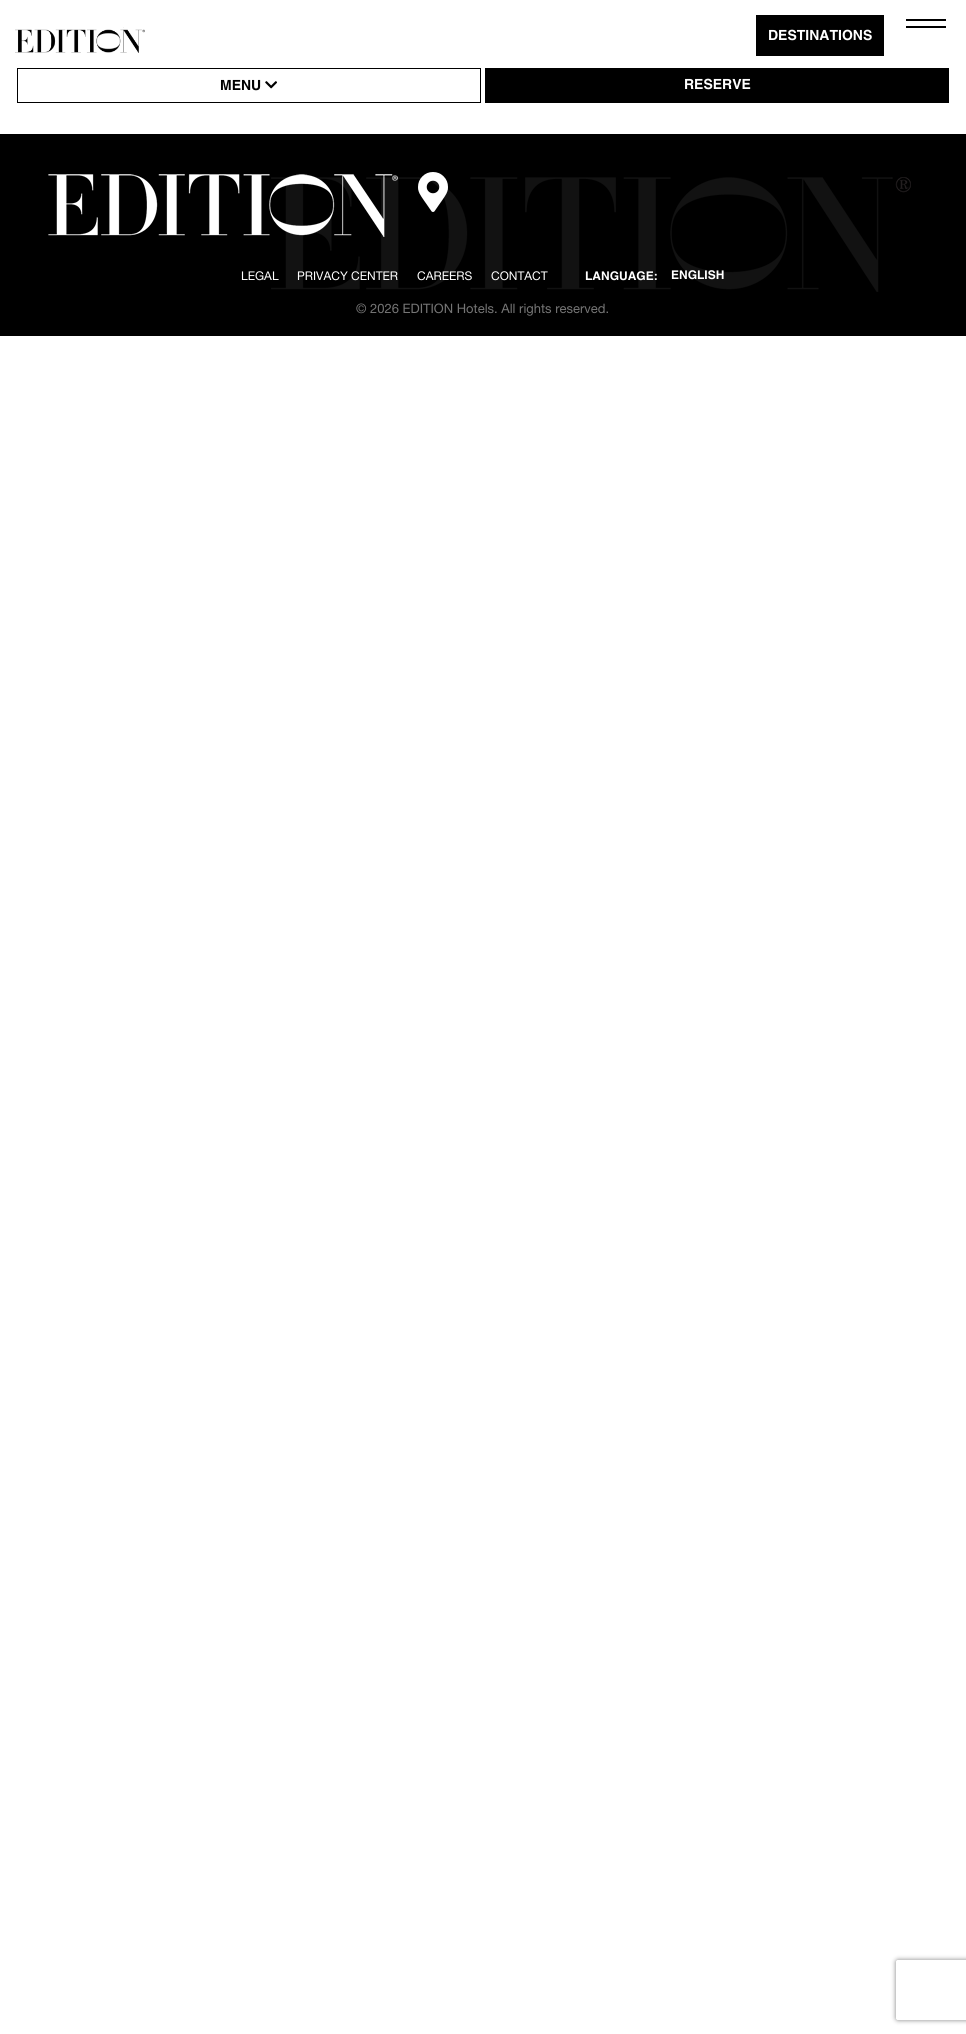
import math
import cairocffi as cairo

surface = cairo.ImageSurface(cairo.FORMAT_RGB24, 966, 2034)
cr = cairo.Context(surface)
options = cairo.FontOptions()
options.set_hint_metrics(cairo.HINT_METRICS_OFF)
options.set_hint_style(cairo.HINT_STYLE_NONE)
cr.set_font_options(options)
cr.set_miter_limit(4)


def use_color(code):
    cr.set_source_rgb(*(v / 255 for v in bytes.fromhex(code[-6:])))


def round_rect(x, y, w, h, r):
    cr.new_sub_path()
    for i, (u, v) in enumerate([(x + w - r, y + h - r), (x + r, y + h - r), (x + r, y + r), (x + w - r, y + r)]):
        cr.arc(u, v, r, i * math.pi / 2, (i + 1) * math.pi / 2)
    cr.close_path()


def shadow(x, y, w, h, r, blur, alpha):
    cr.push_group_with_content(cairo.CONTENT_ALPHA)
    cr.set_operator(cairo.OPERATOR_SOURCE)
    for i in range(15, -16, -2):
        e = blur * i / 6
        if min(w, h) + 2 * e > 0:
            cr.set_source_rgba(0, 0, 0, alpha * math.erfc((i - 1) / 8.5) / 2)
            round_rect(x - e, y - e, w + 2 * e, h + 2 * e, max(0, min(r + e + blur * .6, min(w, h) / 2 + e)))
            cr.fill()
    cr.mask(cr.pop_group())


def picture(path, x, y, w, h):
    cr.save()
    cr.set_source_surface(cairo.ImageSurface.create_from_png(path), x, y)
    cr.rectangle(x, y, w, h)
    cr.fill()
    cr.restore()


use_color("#ffffff")
cr.paint()
use_color("#000000")
cr.rectangle(906, 19, 40, 2)
cr.fill()
cr.rectangle(906, 26, 40, 2)
cr.fill()
cr.rectangle(756, 15, 128, 41)
cr.fill()
cr.select_font_face("Helvetica", cairo.FONT_SLANT_NORMAL, cairo.FONT_WEIGHT_BOLD)
cr.set_font_size(14)
use_color("#ffffff")
cr.move_to(768, 40)
cr.show_text("DESTINATIONS")
picture("img1.png", 15, 27, 130, 26)
cr.rectangle(17.5, 68.5, 463, 34)
use_color("#000000")
cr.set_line_width(1)
cr.stroke()
cr.move_to(220, 90)
cr.show_text("MENU")
picture("img2.png", 265, 81, 12, 8)
cr.rectangle(485, 68, 464, 35)
cr.fill()
use_color("#ffffff")
cr.move_to(684, 89)
cr.show_text("RESERVE")
use_color("#000000")
cr.rectangle(0, 134, 966, 202)
cr.fill()
picture("img3.png", 271, 177, 640, 115)
picture("img4.png", 48, 174, 350, 63)
picture("img5.png", 418, 172, 30, 40)
cr.select_font_face("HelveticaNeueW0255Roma")
cr.set_font_size(12)
use_color("#ffffff")
cr.move_to(241, 280)
cr.show_text("LEGAL")
cr.move_to(297, 280)
cr.show_text("PRIVACY CENTER")
cr.move_to(417, 280)
cr.show_text("CAREERS")
cr.move_to(491, 280)
cr.show_text("CONTACT")
cr.select_font_face("Helvetica", cairo.FONT_SLANT_NORMAL, cairo.FONT_WEIGHT_BOLD)
cr.move_to(585, 280)
cr.show_text("LANGUAGE:")
cr.move_to(671, 279)
cr.show_text("ENGLISH")
cr.select_font_face("HelveticaNeueW0255Roma")
cr.set_font_size(13)
use_color("#757575")
cr.move_to(356, 313)
cr.show_text("© 2026 EDITION Hotels. All rights reserved.")
cr.save()
cr.set_fill_rule(cairo.FILL_RULE_EVEN_ODD)
cr.new_path()
cr.move_to(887, 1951)
cr.line_to(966, 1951)
cr.line_to(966, 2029)
cr.line_to(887, 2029)
cr.close_path()
cr.move_to(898, 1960)
cr.line_to(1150, 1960)
cr.curve_to(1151, 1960, 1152, 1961, 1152, 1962)
cr.line_to(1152, 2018)
cr.curve_to(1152, 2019, 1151, 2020, 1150, 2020)
cr.line_to(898, 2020)
cr.curve_to(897, 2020, 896, 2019, 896, 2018)
cr.line_to(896, 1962)
cr.curve_to(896, 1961, 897, 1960, 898, 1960)
cr.close_path()
cr.clip()
use_color("#808080")
shadow(896, 1960, 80, 60, 2, 2.5, 1)
cr.restore()
surface.write_to_png("result.png")
